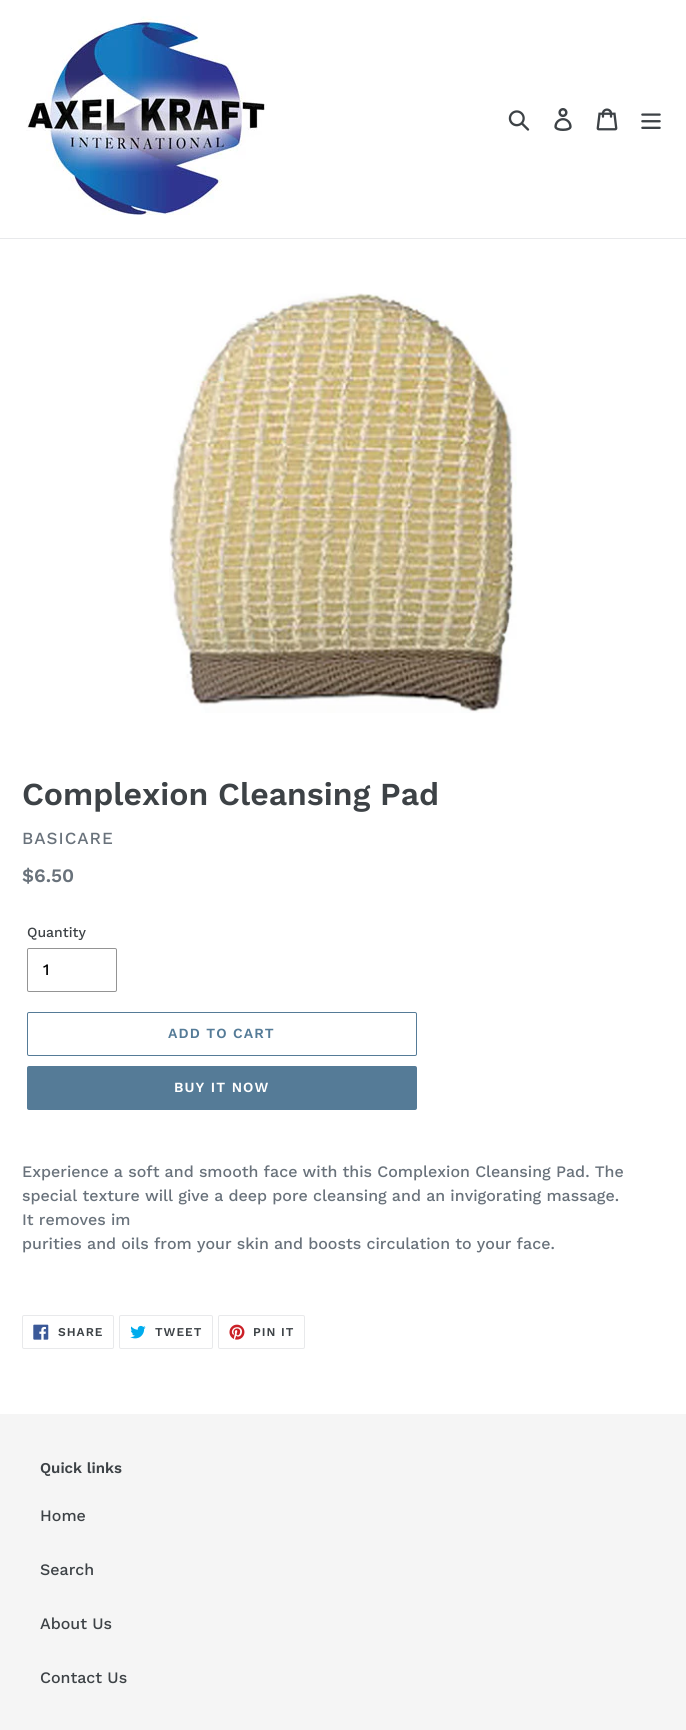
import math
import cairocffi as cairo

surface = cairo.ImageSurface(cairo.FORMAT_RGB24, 686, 1730)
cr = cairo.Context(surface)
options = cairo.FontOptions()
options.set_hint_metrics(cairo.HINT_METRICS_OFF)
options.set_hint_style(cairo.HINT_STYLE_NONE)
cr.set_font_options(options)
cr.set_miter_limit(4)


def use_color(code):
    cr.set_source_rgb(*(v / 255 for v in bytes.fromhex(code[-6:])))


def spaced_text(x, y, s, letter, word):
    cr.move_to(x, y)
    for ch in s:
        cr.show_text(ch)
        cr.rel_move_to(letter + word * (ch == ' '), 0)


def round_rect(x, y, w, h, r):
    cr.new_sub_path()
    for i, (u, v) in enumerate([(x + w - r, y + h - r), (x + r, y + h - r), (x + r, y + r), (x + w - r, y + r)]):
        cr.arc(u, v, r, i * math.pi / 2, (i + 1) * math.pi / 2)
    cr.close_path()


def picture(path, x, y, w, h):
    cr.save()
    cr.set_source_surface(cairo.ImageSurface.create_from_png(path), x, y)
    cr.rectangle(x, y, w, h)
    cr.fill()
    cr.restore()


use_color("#ffffff")
cr.paint()
use_color("#e8e9eb")
cr.rectangle(0, 238, 686, 1)
cr.fill()
picture("img1.png", 26, 16, 241, 199)
picture("img2.png", 508, 110, 22, 21)
picture("img3.png", 554, 108, 18, 23)
picture("img4.png", 596, 108, 22, 23)
picture("img5.png", 641, 113, 20, 16)
picture("img6.png", 169, 293, 348, 420)
cr.select_font_face("Work Sans SemiBold")
cr.set_font_size(32)
use_color("#3d4246")
cr.move_to(22, 805)
cr.show_text("Complexion Cleansing Pad")
cr.select_font_face("Work Sans Medium")
cr.set_font_size(17)
use_color("#69727b")
spaced_text(22, 844, "BASICARE", 1, 0)
cr.select_font_face("Work Sans SemiBold")
cr.set_font_size(19)
cr.move_to(22, 882)
cr.show_text("$6.50")
cr.select_font_face("Work Sans Medium")
cr.set_font_size(14)
use_color("#3d4246")
cr.move_to(27, 937)
cr.show_text("Quantity")
round_rect(27.5, 948.5, 89, 43, 1.5)
use_color("#949494")
cr.set_line_width(1)
cr.stroke()
cr.set_font_size(16)
use_color("#000000")
cr.move_to(43, 975)
cr.show_text("1")
round_rect(27.5, 1012.5, 389, 43, 1.5)
use_color("#557b97")
cr.stroke()
cr.select_font_face("Work Sans SemiBold")
cr.set_font_size(14)
spaced_text(168, 1038, "ADD TO CART", 1.1, 0)
round_rect(27, 1066, 390, 44, 2)
cr.fill()
use_color("#ffffff")
spaced_text(174, 1092, "BUY IT NOW", 1.1, 0)
cr.select_font_face("Work Sans Medium")
cr.set_font_size(16)
use_color("#69727b")
cr.move_to(22, 1177)
cr.show_text("Experience a soft and smooth face with this Complexion Cleansing Pad. The")
cr.move_to(22, 1201)
cr.show_text("special texture will give a deep pore cleansing and an invigorating massage.")
cr.move_to(22, 1225)
cr.show_text("It removes im")
cr.move_to(22, 1249)
cr.show_text("purities and oils from your skin and boosts circulation to your face.")
round_rect(22.5, 1315.5, 91, 33, 1.5)
use_color("#e8e9eb")
cr.stroke()
picture("img7.png", 33, 1324, 16, 16)
cr.select_font_face("Work Sans SemiBold")
cr.set_font_size(12)
use_color("#3d4246")
spaced_text(58, 1336, "SHARE", 1, 0)
round_rect(119.5, 1315.5, 93, 33, 1.5)
use_color("#e8e9eb")
cr.stroke()
picture("img8.png", 130, 1325, 16, 14)
use_color("#3d4246")
spaced_text(155, 1336, "TWEET", 1, 0)
round_rect(218.5, 1315.5, 86, 33, 1.5)
use_color("#e8e9eb")
cr.stroke()
picture("img9.png", 229, 1324, 16, 16)
use_color("#3d4246")
spaced_text(253, 1336, "PIN IT", 1, 0)
use_color("#f5f5f5")
cr.rectangle(0, 1414, 686, 316)
cr.fill()
cr.set_font_size(15)
use_color("#3d4246")
cr.move_to(40, 1473)
cr.show_text("Quick links")
cr.select_font_face("Work Sans Medium")
cr.set_font_size(16)
cr.move_to(40, 1521)
cr.show_text("Home")
cr.move_to(40, 1575)
cr.show_text("Search")
cr.move_to(40, 1629)
cr.show_text("About Us")
cr.move_to(40, 1683)
cr.show_text("Contact Us")
surface.write_to_png("result.png")
